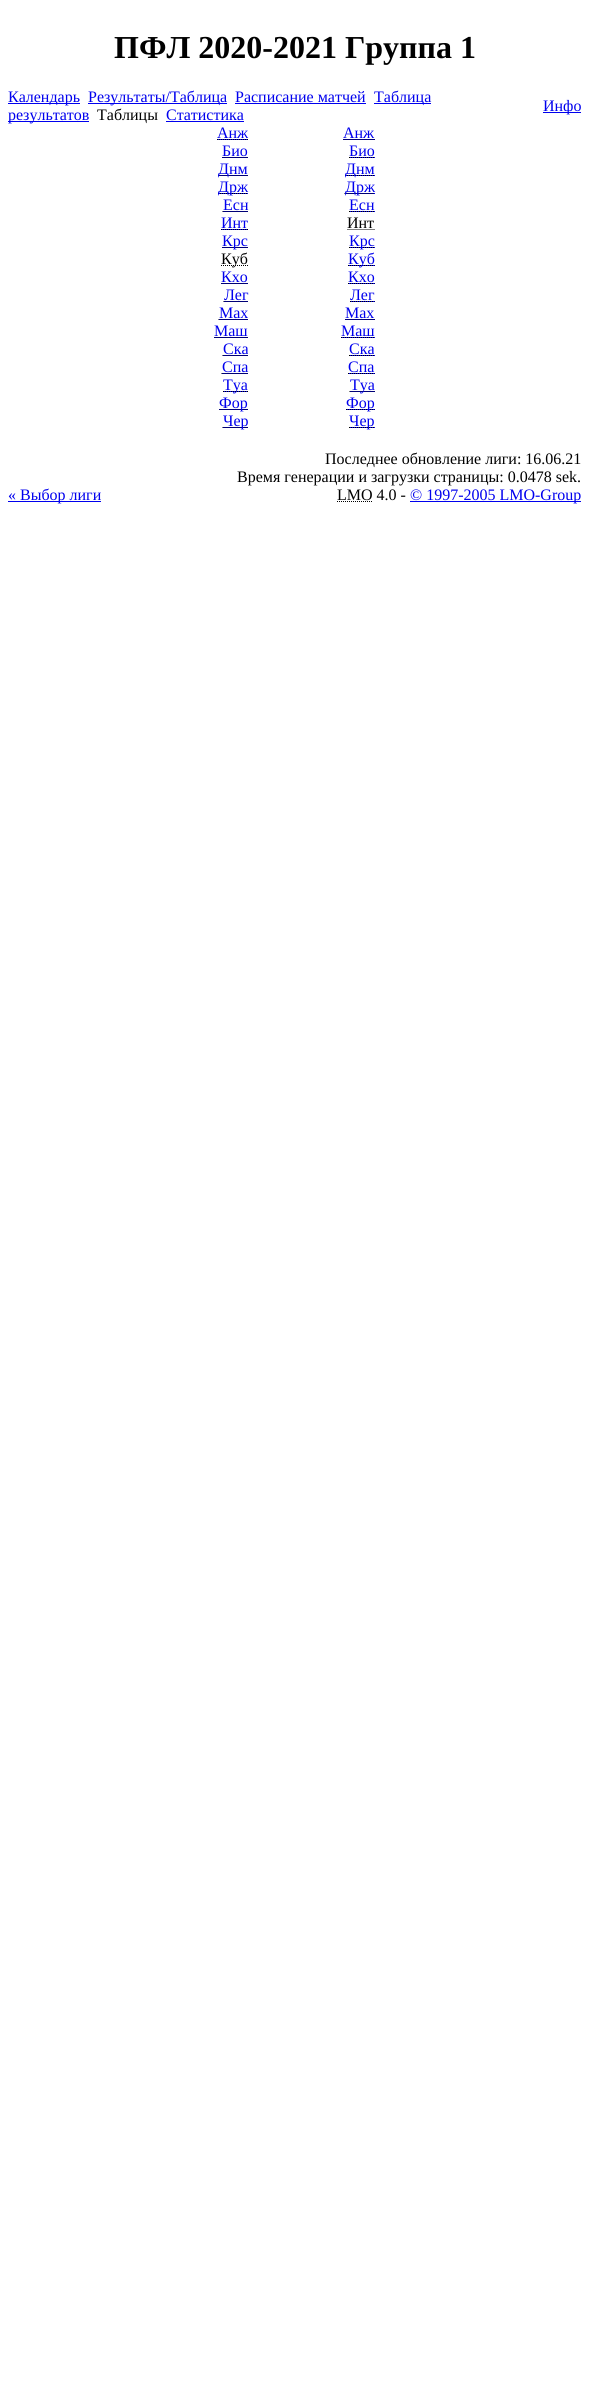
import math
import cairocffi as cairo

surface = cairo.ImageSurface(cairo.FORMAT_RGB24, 589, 2386)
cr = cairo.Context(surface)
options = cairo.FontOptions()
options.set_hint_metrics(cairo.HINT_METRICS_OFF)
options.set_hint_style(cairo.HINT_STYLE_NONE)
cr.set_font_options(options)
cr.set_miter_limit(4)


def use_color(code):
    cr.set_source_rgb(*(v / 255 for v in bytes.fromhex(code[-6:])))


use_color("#ffffff")
cr.paint()
cr.select_font_face("Liberation Serif", cairo.FONT_SLANT_NORMAL, cairo.FONT_WEIGHT_BOLD)
cr.set_font_size(32)
use_color("#000000")
cr.move_to(114, 58)
cr.show_text("ПФЛ 2020-2021 Группа 1")
use_color("#0000ee")
cr.rectangle(8, 103, 72, 1)
cr.fill()
cr.select_font_face("Liberation Serif")
cr.set_font_size(16)
cr.move_to(8, 102)
cr.show_text("Календарь")
cr.rectangle(88, 103, 139, 1)
cr.fill()
cr.move_to(88, 102)
cr.show_text("Результаты/Таблица")
cr.move_to(235, 102)
cr.show_text("Расписание матчей")
cr.rectangle(235, 103, 131, 1)
cr.fill()
cr.rectangle(374, 103, 57, 1)
cr.fill()
cr.move_to(374, 102)
cr.show_text("Таблица")
cr.rectangle(8, 121, 81, 1)
cr.fill()
cr.move_to(8, 120)
cr.show_text("результатов")
use_color("#000000")
cr.move_to(97, 120)
cr.show_text("Таблицы")
use_color("#0000ee")
cr.move_to(166, 120)
cr.show_text("Статистика")
cr.rectangle(166, 121, 78, 1)
cr.fill()
cr.rectangle(543, 112, 38, 1)
cr.fill()
cr.move_to(543, 111)
cr.show_text("Инфо")
cr.move_to(217, 138)
cr.show_text("Анж")
cr.rectangle(217, 139, 31, 1)
cr.fill()
cr.new_path()
cr.move_to(217, 139.5)
cr.line_to(248, 139.5)
use_color("#000000")
cr.set_line_width(1)
cr.set_dash([1, 1])
cr.stroke()
use_color("#0000ee")
cr.move_to(222, 156)
cr.show_text("Био")
cr.rectangle(222, 157, 26, 1)
cr.fill()
cr.new_path()
cr.move_to(222.5, 157.5)
cr.line_to(248, 157.5)
use_color("#000000")
cr.stroke()
use_color("#0000ee")
cr.rectangle(218, 175, 30, 1)
cr.fill()
cr.new_path()
cr.move_to(218.5, 175.5)
cr.line_to(248, 175.5)
use_color("#000000")
cr.stroke()
use_color("#0000ee")
cr.move_to(218, 174)
cr.show_text("Днм")
cr.rectangle(218, 193, 30, 1)
cr.fill()
cr.new_path()
cr.move_to(218, 193.5)
cr.line_to(248, 193.5)
use_color("#000000")
cr.stroke()
use_color("#0000ee")
cr.move_to(218, 192)
cr.show_text("Држ")
cr.move_to(223, 210)
cr.show_text("Есн")
cr.rectangle(223, 211, 25, 1)
cr.fill()
cr.new_path()
cr.move_to(222.5, 211.5)
cr.line_to(248, 211.5)
use_color("#000000")
cr.stroke()
use_color("#0000ee")
cr.move_to(221, 228)
cr.show_text("Инт")
cr.rectangle(221, 229, 27, 1)
cr.fill()
cr.new_path()
cr.move_to(221, 229.5)
cr.line_to(248, 229.5)
use_color("#000000")
cr.stroke()
use_color("#0000ee")
cr.rectangle(222, 247, 26, 1)
cr.fill()
cr.new_path()
cr.move_to(222.5, 247.5)
cr.line_to(248, 247.5)
use_color("#000000")
cr.stroke()
use_color("#0000ee")
cr.move_to(222, 246)
cr.show_text("Крс")
cr.new_path()
cr.move_to(221, 265.5)
cr.line_to(248, 265.5)
use_color("#000000")
cr.stroke()
cr.move_to(221, 264)
cr.show_text("Куб")
use_color("#0000ee")
cr.move_to(221, 282)
cr.show_text("Кхо")
cr.rectangle(221, 283, 27, 1)
cr.fill()
cr.new_path()
cr.move_to(221.5, 283.5)
cr.line_to(248, 283.5)
use_color("#000000")
cr.stroke()
use_color("#0000ee")
cr.move_to(224, 300)
cr.show_text("Лег")
cr.rectangle(224, 301, 24, 1)
cr.fill()
cr.new_path()
cr.move_to(223.5, 301.5)
cr.line_to(248, 301.5)
use_color("#000000")
cr.stroke()
use_color("#0000ee")
cr.move_to(219, 318)
cr.show_text("Мах")
cr.rectangle(219, 319, 29, 1)
cr.fill()
cr.new_path()
cr.move_to(218.5, 319.5)
cr.line_to(248, 319.5)
use_color("#000000")
cr.stroke()
use_color("#0000ee")
cr.move_to(214, 336)
cr.show_text("Маш")
cr.rectangle(214, 337, 34, 1)
cr.fill()
cr.new_path()
cr.move_to(214.5, 337.5)
cr.line_to(248, 337.5)
use_color("#000000")
cr.stroke()
use_color("#0000ee")
cr.move_to(223, 354)
cr.show_text("Ска")
cr.rectangle(223, 355, 25, 1)
cr.fill()
cr.new_path()
cr.move_to(222.5, 355.5)
cr.line_to(248, 355.5)
use_color("#000000")
cr.stroke()
use_color("#0000ee")
cr.move_to(222, 372)
cr.show_text("Спа")
cr.rectangle(222, 373, 26, 1)
cr.fill()
cr.new_path()
cr.move_to(221.5, 373.5)
cr.line_to(248, 373.5)
use_color("#000000")
cr.stroke()
use_color("#0000ee")
cr.rectangle(223, 391, 25, 1)
cr.fill()
cr.new_path()
cr.move_to(223, 391.5)
cr.line_to(248, 391.5)
use_color("#000000")
cr.stroke()
use_color("#0000ee")
cr.move_to(223, 390)
cr.show_text("Туа")
cr.rectangle(219, 409, 29, 1)
cr.fill()
cr.new_path()
cr.move_to(219.5, 409.5)
cr.line_to(248, 409.5)
use_color("#000000")
cr.stroke()
use_color("#0000ee")
cr.move_to(219, 408)
cr.show_text("Фор")
cr.rectangle(223, 427, 25, 1)
cr.fill()
cr.new_path()
cr.move_to(222.5, 427.5)
cr.line_to(248, 427.5)
use_color("#000000")
cr.stroke()
use_color("#0000ee")
cr.move_to(223, 426)
cr.show_text("Чер")
cr.move_to(343, 138)
cr.show_text("Анж")
cr.rectangle(343, 139, 32, 1)
cr.fill()
cr.new_path()
cr.move_to(343.5, 139.5)
cr.line_to(374.5, 139.5)
use_color("#000000")
cr.stroke()
use_color("#0000ee")
cr.move_to(349, 156)
cr.show_text("Био")
cr.rectangle(349, 157, 26, 1)
cr.fill()
cr.new_path()
cr.move_to(349, 157.5)
cr.line_to(374.5, 157.5)
use_color("#000000")
cr.stroke()
use_color("#0000ee")
cr.rectangle(345, 175, 30, 1)
cr.fill()
cr.new_path()
cr.move_to(345, 175.5)
cr.line_to(374.5, 175.5)
use_color("#000000")
cr.stroke()
use_color("#0000ee")
cr.move_to(345, 174)
cr.show_text("Днм")
cr.rectangle(345, 193, 30, 1)
cr.fill()
cr.new_path()
cr.move_to(344.5, 193.5)
cr.line_to(374.5, 193.5)
use_color("#000000")
cr.stroke()
use_color("#0000ee")
cr.move_to(345, 192)
cr.show_text("Држ")
cr.move_to(349, 210)
cr.show_text("Есн")
cr.rectangle(349, 211, 26, 1)
cr.fill()
cr.new_path()
cr.move_to(349, 211.5)
cr.line_to(374.5, 211.5)
use_color("#000000")
cr.stroke()
cr.move_to(347, 228)
cr.show_text("Инт")
cr.new_path()
cr.move_to(347.5, 229.5)
cr.line_to(374.5, 229.5)
cr.stroke()
use_color("#0000ee")
cr.rectangle(349, 247, 26, 1)
cr.fill()
cr.new_path()
cr.move_to(349, 247.5)
cr.line_to(374.5, 247.5)
use_color("#000000")
cr.stroke()
use_color("#0000ee")
cr.move_to(349, 246)
cr.show_text("Крс")
cr.rectangle(348, 265, 27, 1)
cr.fill()
cr.new_path()
cr.move_to(348, 265.5)
cr.line_to(374.5, 265.5)
use_color("#000000")
cr.stroke()
use_color("#0000ee")
cr.move_to(348, 264)
cr.show_text("Куб")
cr.move_to(348, 282)
cr.show_text("Кхо")
cr.rectangle(348, 283, 27, 1)
cr.fill()
cr.new_path()
cr.move_to(348, 283.5)
cr.line_to(374.5, 283.5)
use_color("#000000")
cr.stroke()
use_color("#0000ee")
cr.move_to(350, 300)
cr.show_text("Лег")
cr.rectangle(350, 301, 25, 1)
cr.fill()
cr.new_path()
cr.move_to(350, 301.5)
cr.line_to(374.5, 301.5)
use_color("#000000")
cr.stroke()
use_color("#0000ee")
cr.move_to(345, 318)
cr.show_text("Мах")
cr.rectangle(345, 319, 30, 1)
cr.fill()
cr.new_path()
cr.move_to(345.5, 319.5)
cr.line_to(374.5, 319.5)
use_color("#000000")
cr.stroke()
use_color("#0000ee")
cr.move_to(341, 336)
cr.show_text("Маш")
cr.rectangle(341, 337, 34, 1)
cr.fill()
cr.new_path()
cr.move_to(341, 337.5)
cr.line_to(374.5, 337.5)
use_color("#000000")
cr.stroke()
use_color("#0000ee")
cr.move_to(349, 354)
cr.show_text("Ска")
cr.rectangle(349, 355, 26, 1)
cr.fill()
cr.new_path()
cr.move_to(349, 355.5)
cr.line_to(374.5, 355.5)
use_color("#000000")
cr.stroke()
use_color("#0000ee")
cr.move_to(348, 372)
cr.show_text("Спа")
cr.rectangle(348, 373, 27, 1)
cr.fill()
cr.new_path()
cr.move_to(348, 373.5)
cr.line_to(374.5, 373.5)
use_color("#000000")
cr.stroke()
use_color("#0000ee")
cr.rectangle(350, 391, 25, 1)
cr.fill()
cr.new_path()
cr.move_to(349.5, 391.5)
cr.line_to(374.5, 391.5)
use_color("#000000")
cr.stroke()
use_color("#0000ee")
cr.move_to(350, 390)
cr.show_text("Туа")
cr.rectangle(346, 409, 29, 1)
cr.fill()
cr.new_path()
cr.move_to(346, 409.5)
cr.line_to(374.5, 409.5)
use_color("#000000")
cr.stroke()
use_color("#0000ee")
cr.move_to(346, 408)
cr.show_text("Фор")
cr.rectangle(349, 427, 26, 1)
cr.fill()
cr.new_path()
cr.move_to(349, 427.5)
cr.line_to(374.5, 427.5)
use_color("#000000")
cr.stroke()
use_color("#0000ee")
cr.move_to(349, 426)
cr.show_text("Чер")
cr.rectangle(8, 501, 93, 1)
cr.fill()
cr.move_to(8, 500)
cr.show_text("« Выбор лиги")
use_color("#000000")
cr.move_to(325, 464)
cr.show_text("Последнее обновление лиги: 16.06.21")
cr.move_to(237, 482)
cr.show_text("Время генерации и загрузки страницы: 0.0478 sek.")
cr.move_to(337, 500)
cr.show_text("LMO 4.0 -")
cr.new_path()
cr.move_to(337, 501.5)
cr.line_to(372.5, 501.5)
cr.stroke()
use_color("#0000ee")
cr.rectangle(410, 501, 171, 1)
cr.fill()
cr.move_to(410, 500)
cr.show_text("© 1997-2005 LMO-Group")
surface.write_to_png("result.png")
